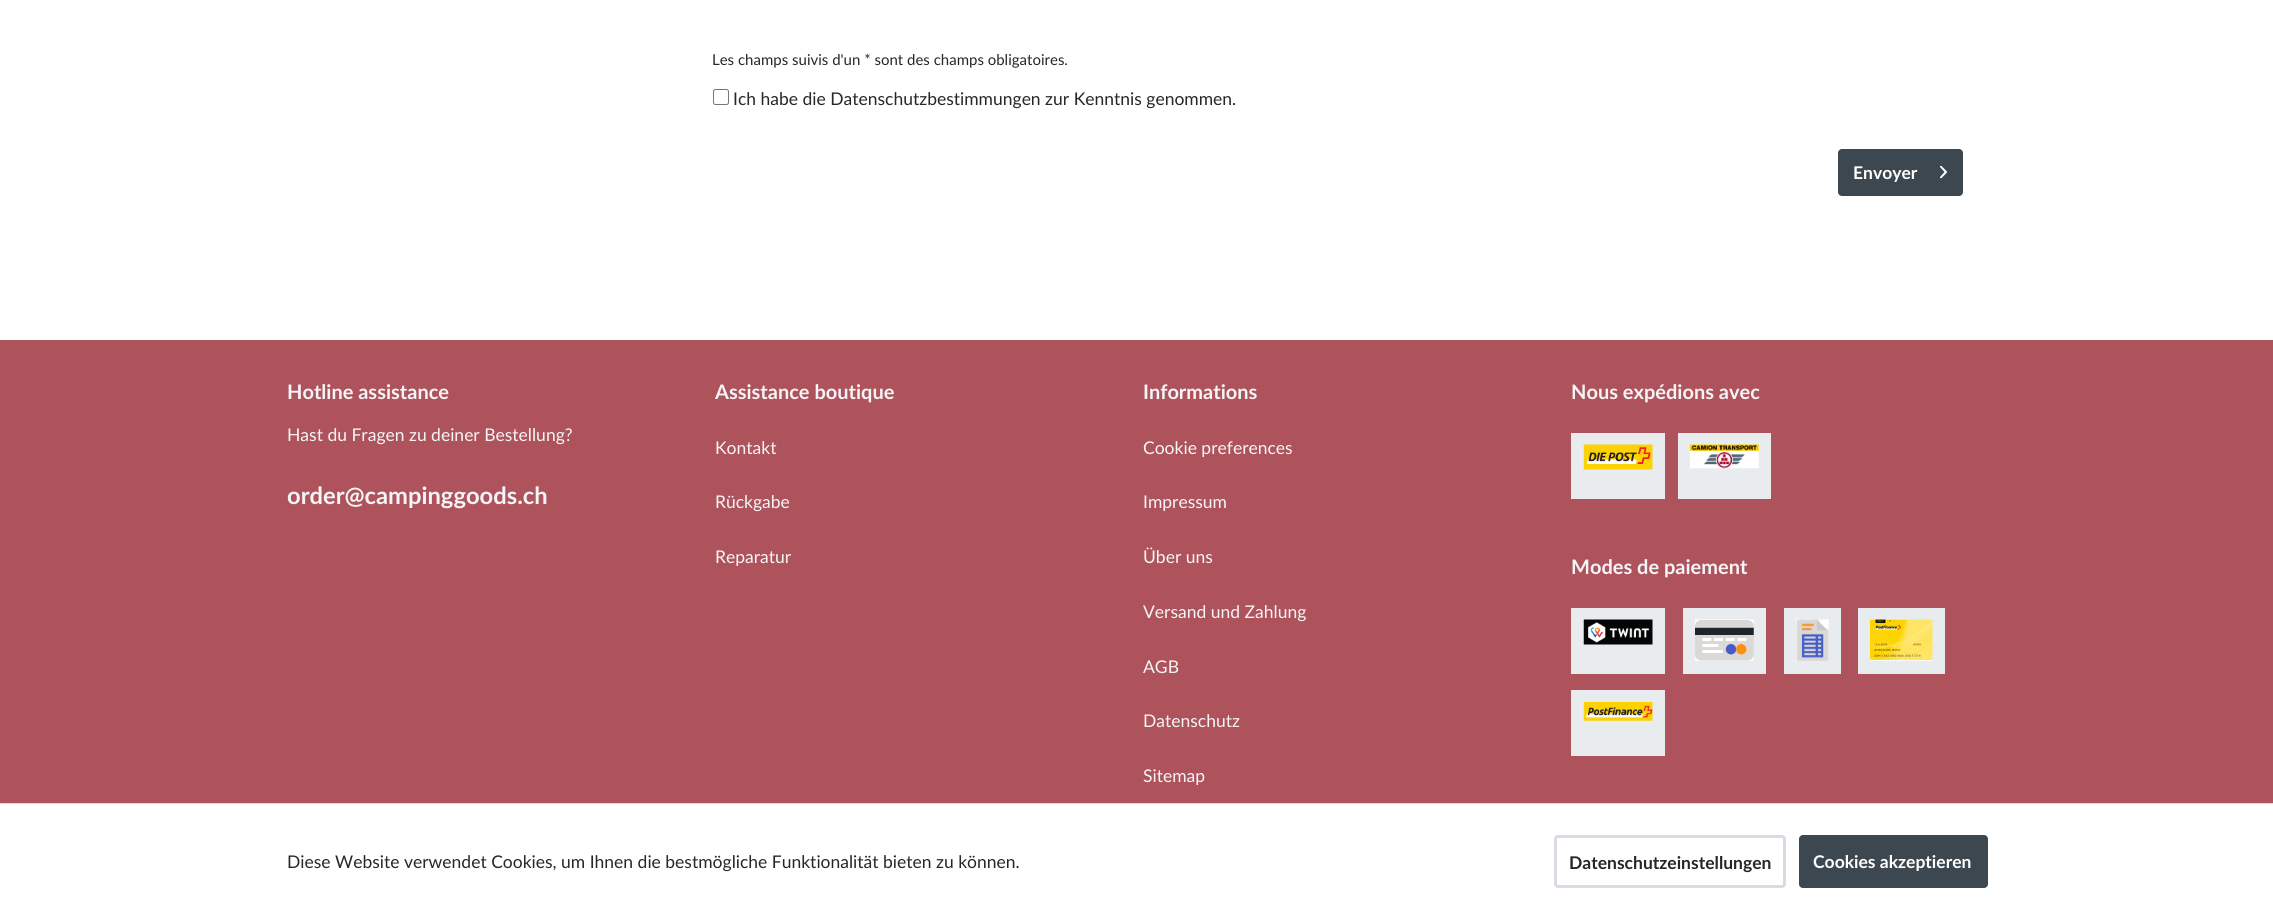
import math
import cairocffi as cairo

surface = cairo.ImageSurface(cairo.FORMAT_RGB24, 2273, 918)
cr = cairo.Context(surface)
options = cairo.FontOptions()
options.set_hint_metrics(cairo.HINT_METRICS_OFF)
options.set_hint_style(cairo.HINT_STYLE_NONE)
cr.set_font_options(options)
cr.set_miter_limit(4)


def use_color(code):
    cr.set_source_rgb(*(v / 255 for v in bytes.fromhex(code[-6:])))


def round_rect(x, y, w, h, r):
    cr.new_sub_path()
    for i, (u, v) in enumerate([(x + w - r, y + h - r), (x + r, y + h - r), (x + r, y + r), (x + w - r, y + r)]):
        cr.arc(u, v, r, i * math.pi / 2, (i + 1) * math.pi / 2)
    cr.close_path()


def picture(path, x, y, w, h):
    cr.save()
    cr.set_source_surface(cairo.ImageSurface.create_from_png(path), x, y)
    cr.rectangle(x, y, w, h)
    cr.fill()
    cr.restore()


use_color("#ffffff")
cr.paint()
cr.select_font_face("Lato")
cr.set_font_size(15)
use_color("#24282b")
cr.move_to(712, 65)
cr.show_text("Les champs suivis d'un * sont des champs obligatoires.")
round_rect(713.5, 89.5, 15, 15, 2)
use_color("#767676")
cr.set_line_width(1)
cr.stroke()
cr.set_font_size(17.5)
use_color("#24282b")
cr.move_to(733, 105)
cr.show_text("Ich habe die Datenschutzbestimmungen zur Kenntnis genommen.")
use_color("#3c4750")
round_rect(1838, 149, 125, 47, 4)
cr.fill()
cr.select_font_face("Lato", cairo.FONT_SLANT_NORMAL, cairo.FONT_WEIGHT_BOLD)
use_color("#ffffff")
cr.move_to(1853, 179)
cr.show_text("Envoyer")
picture("img1.png", 1940, 165, 7, 14)
use_color("#ae535c")
cr.rectangle(0, 340, 2273, 463)
cr.fill()
cr.set_font_size(20)
use_color("#f5f5f8")
cr.move_to(287, 399)
cr.show_text("Hotline assistance")
cr.select_font_face("Lato")
cr.set_font_size(17.5)
cr.move_to(287, 441)
cr.show_text("Hast du Fragen zu deiner Bestellung?")
cr.select_font_face("Lato", cairo.FONT_SLANT_NORMAL, cairo.FONT_WEIGHT_BOLD)
cr.set_font_size(23.75)
cr.move_to(287, 504)
cr.show_text("order@campinggoods.ch")
cr.set_font_size(20)
cr.move_to(715, 399)
cr.show_text("Assistance boutique")
cr.select_font_face("Lato")
cr.set_font_size(17.5)
cr.move_to(715, 454)
cr.show_text("Kontakt")
cr.move_to(715, 508)
cr.show_text("Rückgabe")
cr.move_to(715, 563)
cr.show_text("Reparatur")
cr.select_font_face("Lato", cairo.FONT_SLANT_NORMAL, cairo.FONT_WEIGHT_BOLD)
cr.set_font_size(20)
cr.move_to(1143, 399)
cr.show_text("Informations")
cr.select_font_face("Lato")
cr.set_font_size(17.5)
cr.move_to(1143, 454)
cr.show_text("Cookie preferences")
cr.move_to(1143, 508)
cr.show_text("Impressum")
cr.move_to(1143, 563)
cr.show_text("Über uns")
cr.move_to(1143, 618)
cr.show_text("Versand und Zahlung")
cr.move_to(1143, 673)
cr.show_text("AGB")
cr.move_to(1143, 727)
cr.show_text("Datenschutz")
cr.move_to(1143, 782)
cr.show_text("Sitemap")
cr.select_font_face("Lato", cairo.FONT_SLANT_NORMAL, cairo.FONT_WEIGHT_BOLD)
cr.set_font_size(20)
cr.move_to(1571, 399)
cr.show_text("Nous expédions avec")
use_color("#e9ecef")
cr.rectangle(1571, 433, 94, 66)
cr.fill()
picture("img2.png", 1583, 444, 70, 26)
cr.rectangle(1678, 433, 93, 66)
cr.fill()
picture("img3.png", 1690, 444, 69, 25)
use_color("#f5f5f8")
cr.move_to(1571, 574)
cr.show_text("Modes de paiement")
use_color("#e9ecef")
cr.rectangle(1571, 608, 94, 66)
cr.fill()
picture("img4.png", 1583, 619, 70, 26)
cr.rectangle(1683, 608, 83, 66)
cr.fill()
picture("img5.png", 1695, 619, 59, 42)
cr.rectangle(1784, 608, 57, 66)
cr.fill()
picture("img6.png", 1796, 619, 33, 42)
cr.rectangle(1858, 608, 87, 66)
cr.fill()
picture("img7.png", 1870, 619, 63, 42)
cr.rectangle(1571, 690, 94, 66)
cr.fill()
picture("img8.png", 1583, 702, 70, 19)
use_color("#dadae5")
cr.rectangle(0, 803, 2273, 1)
cr.fill()
cr.select_font_face("Lato")
cr.set_font_size(17.5)
use_color("#24282b")
cr.move_to(287, 868)
cr.show_text("Diese Website verwendet Cookies, um Ihnen die bestmögliche Funktionalität bieten zu können.")
round_rect(1555.5, 836.5, 229, 50, 2.5)
use_color("#dadae5")
cr.set_line_width(3)
cr.stroke()
cr.select_font_face("Lato", cairo.FONT_SLANT_NORMAL, cairo.FONT_WEIGHT_BOLD)
use_color("#24282b")
cr.move_to(1569, 869)
cr.show_text("Datenschutzeinstellungen")
use_color("#3c4750")
round_rect(1799, 835, 189, 53, 4)
cr.fill()
use_color("#ffffff")
cr.move_to(1813, 868)
cr.show_text("Cookies akzeptieren")
surface.write_to_png("result.png")
